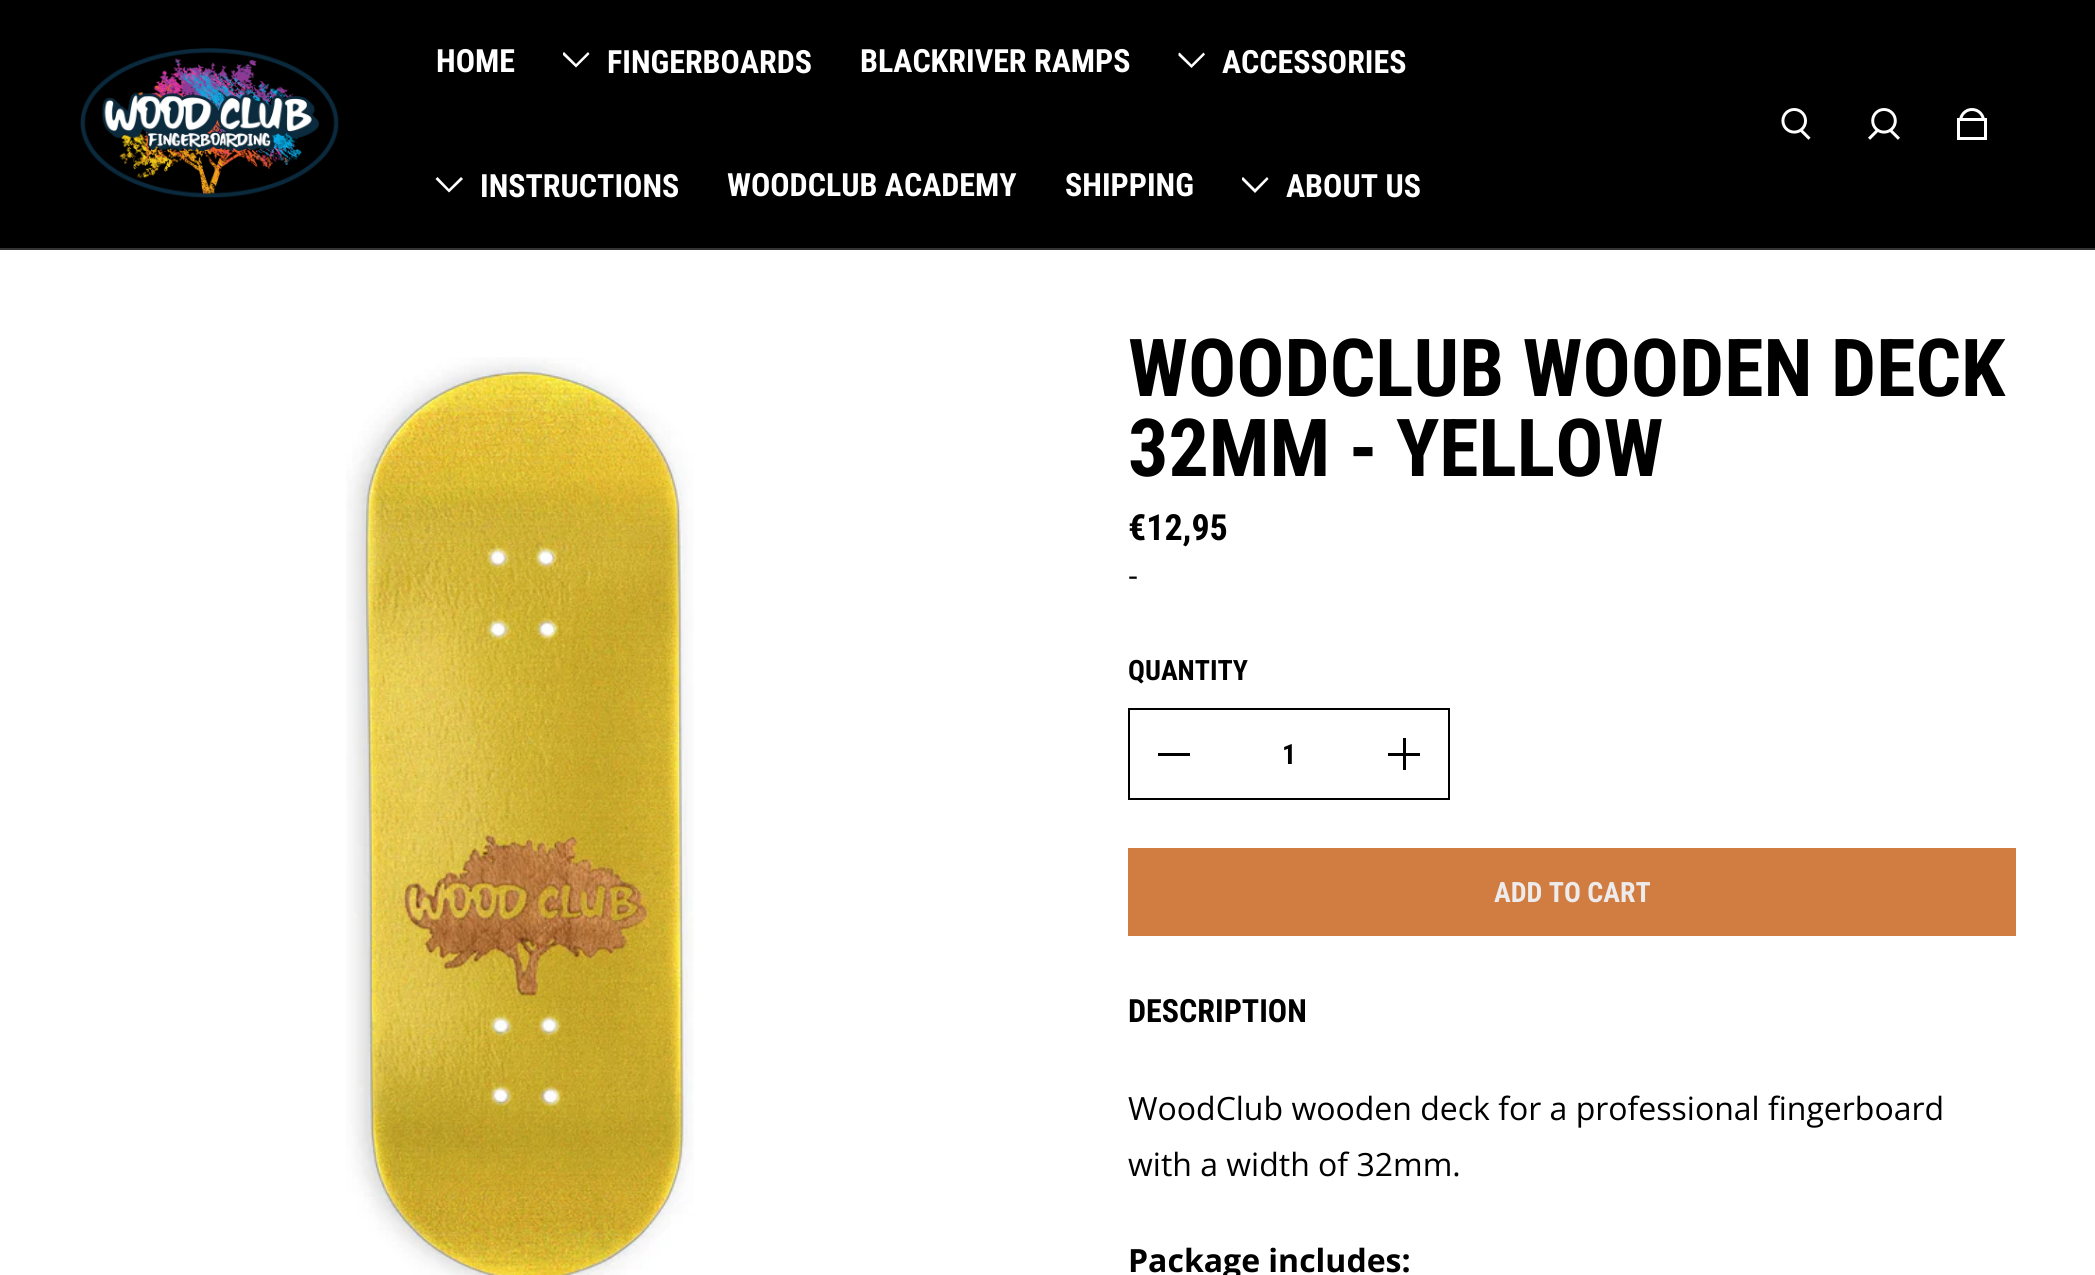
import math
import cairocffi as cairo

surface = cairo.ImageSurface(cairo.FORMAT_RGB24, 2095, 1275)
cr = cairo.Context(surface)
options = cairo.FontOptions()
options.set_hint_metrics(cairo.HINT_METRICS_OFF)
options.set_hint_style(cairo.HINT_STYLE_NONE)
cr.set_font_options(options)
cr.set_miter_limit(4)


def use_color(code):
    cr.set_source_rgb(*(v / 255 for v in bytes.fromhex(code[-6:])))


def picture(path, x, y, w, h):
    cr.save()
    cr.set_source_surface(cairo.ImageSurface.create_from_png(path), x, y)
    cr.rectangle(x, y, w, h)
    cr.fill()
    cr.restore()


use_color("#ffffff")
cr.paint()
use_color("#000000")
cr.rectangle(0, 0, 2095, 248)
cr.fill()
use_color("#333333")
cr.rectangle(0, 248, 2095, 2)
cr.fill()
picture("img1.png", 80, 48, 259, 150)
cr.select_font_face("Roboto Condensed", cairo.FONT_SLANT_NORMAL, cairo.FONT_WEIGHT_BOLD)
cr.set_font_size(32)
use_color("#ffffff")
cr.move_to(436, 72)
cr.show_text("HOME")
cr.new_path()
cr.move_to(576, 64)
cr.line_to(588, 52)
cr.line_to(589.5, 54)
cr.line_to(576, 67.5)
cr.line_to(563, 55)
cr.line_to(563, 53)
cr.line_to(564, 52)
cr.close_path()
cr.fill()
cr.move_to(607, 73)
cr.show_text("FINGERBOARDS")
cr.move_to(860, 72)
cr.show_text("BLACKRIVER RAMPS")
cr.new_path()
cr.move_to(1191.5, 64.5)
cr.line_to(1203.5, 52.5)
cr.line_to(1205, 54.5)
cr.line_to(1191.5, 68)
cr.line_to(1178.5, 55.5)
cr.line_to(1178.5, 53.5)
cr.line_to(1179.5, 52.5)
cr.close_path()
cr.fill()
cr.move_to(1222, 73)
cr.show_text("ACCESSORIES")
cr.set_fill_rule(cairo.FILL_RULE_EVEN_ODD)
cr.new_path()
cr.move_to(449, 189)
cr.line_to(437.5, 177)
cr.line_to(435.5, 179)
cr.line_to(449, 192.5)
cr.line_to(463, 179)
cr.line_to(461, 177)
cr.close_path()
cr.fill()
cr.move_to(480, 197)
cr.show_text("INSTRUCTIONS")
cr.move_to(727, 196)
cr.show_text("WOODCLUB ACADEMY")
cr.move_to(1065, 196)
cr.show_text("SHIPPING")
cr.set_fill_rule(cairo.FILL_RULE_WINDING)
cr.new_path()
cr.move_to(1255, 189)
cr.line_to(1267, 177)
cr.line_to(1268.5, 179)
cr.line_to(1255, 193)
cr.line_to(1242, 180)
cr.line_to(1242, 178)
cr.line_to(1243, 177)
cr.close_path()
cr.fill()
cr.move_to(1286, 197)
cr.show_text("ABOUT US")
picture("img2.png", 1781, 108, 30, 32)
picture("img3.png", 1868, 108, 32, 32)
picture("img4.png", 1957, 108, 30, 32)
picture("img5.png", 346, 357, 348, 918)
cr.set_font_size(80)
use_color("#000000")
cr.move_to(1128, 396)
cr.show_text("WOODCLUB WOODEN DECK")
cr.move_to(1128, 476)
cr.show_text("32MM - YELLOW")
cr.set_font_size(36)
cr.move_to(1128, 540)
cr.show_text("€12,95")
cr.select_font_face("Open Sans")
cr.set_font_size(31)
cr.move_to(1128, 586)
cr.show_text("-")
cr.select_font_face("Roboto Condensed", cairo.FONT_SLANT_NORMAL, cairo.FONT_WEIGHT_BOLD)
cr.set_font_size(28)
cr.move_to(1128, 680)
cr.show_text("QUANTITY")
cr.rectangle(1129, 709, 320, 90)
cr.stroke()
cr.rectangle(1158, 753, 32, 3)
cr.fill()
cr.move_to(1282, 764)
cr.show_text("1")
cr.rectangle(1388, 753, 32, 3)
cr.fill()
cr.rectangle(1403, 738, 3, 32)
cr.fill()
use_color("#d17c40")
cr.rectangle(1128, 848, 888, 88)
cr.fill()
use_color("#edebeb")
cr.move_to(1494, 902)
cr.show_text("ADD TO CART")
cr.set_font_size(32)
use_color("#000000")
cr.move_to(1128, 1022)
cr.show_text("DESCRIPTION")
cr.select_font_face("Open Sans")
cr.move_to(1128, 1120)
cr.show_text("WoodClub wooden deck for a professional fingerboard")
cr.move_to(1128, 1176)
cr.show_text("with a width of 32mm.")
cr.select_font_face("Open Sans", cairo.FONT_SLANT_NORMAL, cairo.FONT_WEIGHT_BOLD)
cr.move_to(1128, 1272)
cr.show_text("Package includes:")
surface.write_to_png("result.png")
